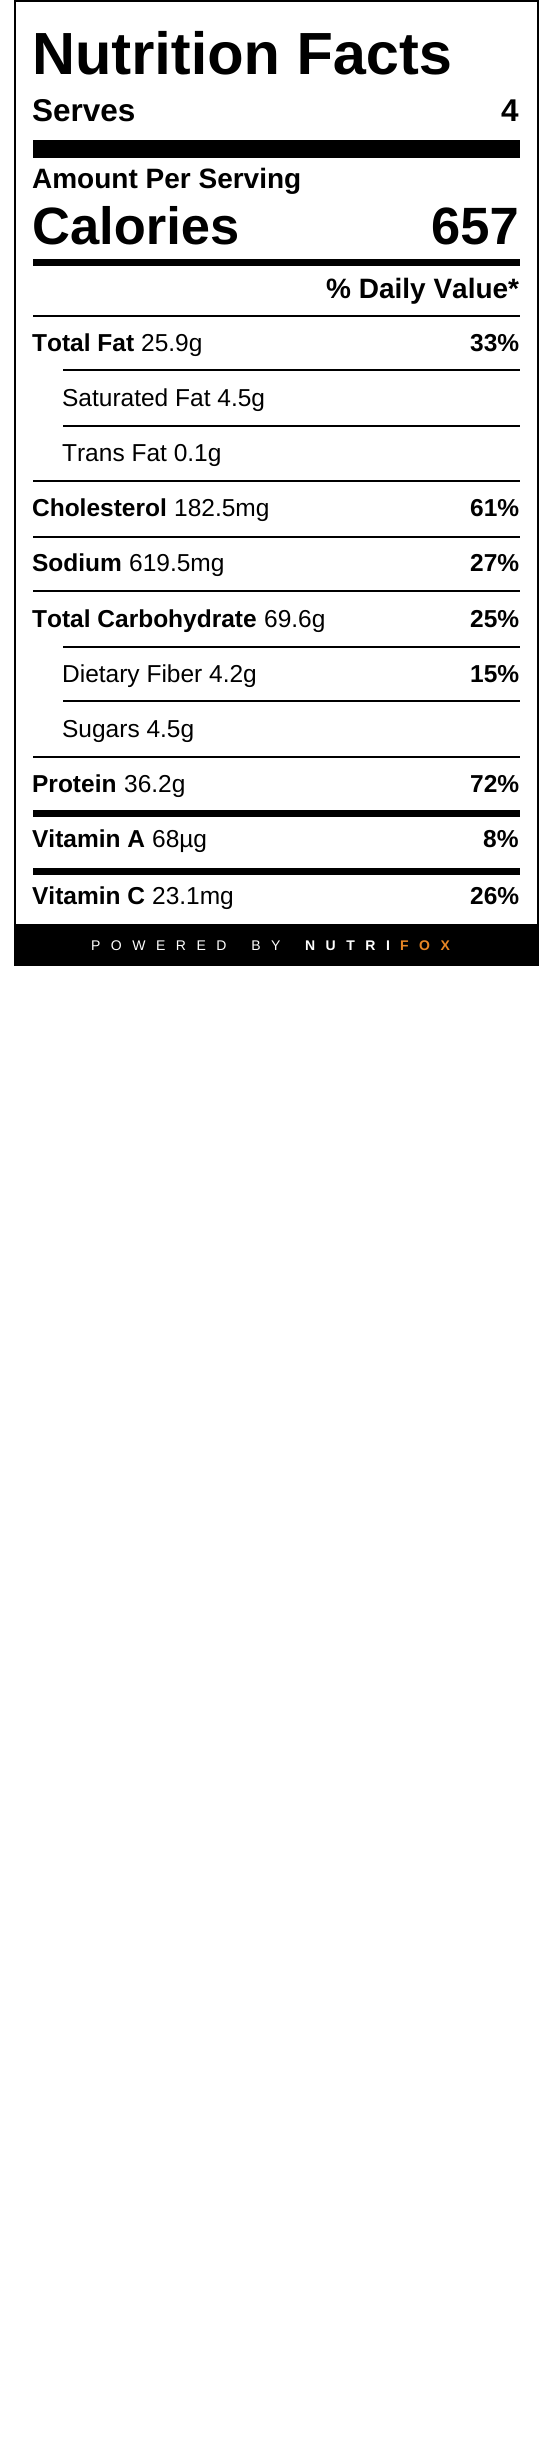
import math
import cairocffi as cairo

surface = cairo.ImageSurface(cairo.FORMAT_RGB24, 550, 2447)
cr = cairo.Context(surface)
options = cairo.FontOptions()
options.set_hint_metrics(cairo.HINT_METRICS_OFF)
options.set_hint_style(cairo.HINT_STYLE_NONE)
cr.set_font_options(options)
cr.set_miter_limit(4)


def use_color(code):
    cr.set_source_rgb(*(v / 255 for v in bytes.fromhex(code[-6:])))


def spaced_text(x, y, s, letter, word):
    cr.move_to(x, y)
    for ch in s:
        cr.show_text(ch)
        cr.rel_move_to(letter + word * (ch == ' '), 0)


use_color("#ffffff")
cr.paint()
cr.rectangle(15, 1, 523, 924)
use_color("#000000")
cr.stroke()
cr.rectangle(33, 140, 487, 18)
cr.fill()
cr.select_font_face("Liberation Sans", cairo.FONT_SLANT_NORMAL, cairo.FONT_WEIGHT_BOLD)
cr.set_font_size(59.5)
cr.move_to(32, 74)
cr.show_text("Nutrition Facts")
cr.set_font_size(31.5)
cr.move_to(32, 121)
cr.show_text("Serves")
cr.move_to(501, 121)
cr.show_text("4")
cr.set_font_size(28)
cr.move_to(32, 188)
cr.show_text("Amount Per Serving")
cr.set_font_size(52.5)
cr.move_to(32, 244)
cr.show_text("Calories")
cr.move_to(431, 244)
cr.show_text("657")
cr.rectangle(33, 259, 487, 7)
cr.fill()
cr.set_font_size(28)
cr.move_to(326, 298)
cr.show_text("% Daily Value*")
cr.rectangle(33, 315, 487, 2)
cr.fill()
cr.set_font_size(24.5)
cr.move_to(32, 351)
cr.show_text("Total Fat")
cr.select_font_face("Liberation Sans")
cr.move_to(141, 351)
cr.show_text("25.9g")
cr.select_font_face("Liberation Sans", cairo.FONT_SLANT_NORMAL, cairo.FONT_WEIGHT_BOLD)
cr.move_to(470, 351)
cr.show_text("33%")
cr.rectangle(63, 369, 457, 2)
cr.fill()
cr.select_font_face("Liberation Sans")
cr.move_to(62, 406)
cr.show_text("Saturated Fat 4.5g")
cr.rectangle(63, 425, 457, 2)
cr.fill()
cr.move_to(62, 461)
cr.show_text("Trans Fat 0.1g")
cr.rectangle(33, 480, 487, 2)
cr.fill()
cr.select_font_face("Liberation Sans", cairo.FONT_SLANT_NORMAL, cairo.FONT_WEIGHT_BOLD)
cr.move_to(32, 516)
cr.show_text("Cholesterol")
cr.select_font_face("Liberation Sans")
cr.move_to(174, 516)
cr.show_text("182.5mg")
cr.select_font_face("Liberation Sans", cairo.FONT_SLANT_NORMAL, cairo.FONT_WEIGHT_BOLD)
cr.move_to(470, 516)
cr.show_text("61%")
cr.rectangle(33, 536, 487, 2)
cr.fill()
cr.move_to(32, 571)
cr.show_text("Sodium")
cr.select_font_face("Liberation Sans")
cr.move_to(129, 571)
cr.show_text("619.5mg")
cr.select_font_face("Liberation Sans", cairo.FONT_SLANT_NORMAL, cairo.FONT_WEIGHT_BOLD)
cr.move_to(470, 571)
cr.show_text("27%")
cr.rectangle(33, 590, 487, 2)
cr.fill()
cr.move_to(32, 627)
cr.show_text("Total Carbohydrate")
cr.select_font_face("Liberation Sans")
cr.move_to(264, 627)
cr.show_text("69.6g")
cr.select_font_face("Liberation Sans", cairo.FONT_SLANT_NORMAL, cairo.FONT_WEIGHT_BOLD)
cr.move_to(470, 627)
cr.show_text("25%")
cr.rectangle(63, 646, 457, 2)
cr.fill()
cr.select_font_face("Liberation Sans")
cr.move_to(62, 682)
cr.show_text("Dietary Fiber 4.2g")
cr.select_font_face("Liberation Sans", cairo.FONT_SLANT_NORMAL, cairo.FONT_WEIGHT_BOLD)
cr.move_to(470, 682)
cr.show_text("15%")
cr.rectangle(63, 700, 457, 2)
cr.fill()
cr.select_font_face("Liberation Sans")
cr.move_to(62, 737)
cr.show_text("Sugars 4.5g")
cr.rectangle(33, 756, 487, 2)
cr.fill()
cr.select_font_face("Liberation Sans", cairo.FONT_SLANT_NORMAL, cairo.FONT_WEIGHT_BOLD)
cr.move_to(32, 792)
cr.show_text("Protein")
cr.select_font_face("Liberation Sans")
cr.move_to(124, 792)
cr.show_text("36.2g")
cr.select_font_face("Liberation Sans", cairo.FONT_SLANT_NORMAL, cairo.FONT_WEIGHT_BOLD)
cr.move_to(470, 792)
cr.show_text("72%")
cr.rectangle(33, 810, 487, 7)
cr.fill()
cr.move_to(32, 847)
cr.show_text("Vitamin A")
cr.select_font_face("Liberation Sans")
cr.move_to(152, 847)
cr.show_text("68µg")
cr.select_font_face("Liberation Sans", cairo.FONT_SLANT_NORMAL, cairo.FONT_WEIGHT_BOLD)
cr.move_to(483, 847)
cr.show_text("8%")
cr.rectangle(33, 868, 487, 7)
cr.fill()
cr.move_to(32, 904)
cr.show_text("Vitamin C")
cr.select_font_face("Liberation Sans")
cr.move_to(152, 904)
cr.show_text("23.1mg")
cr.select_font_face("Liberation Sans", cairo.FONT_SLANT_NORMAL, cairo.FONT_WEIGHT_BOLD)
cr.move_to(470, 904)
cr.show_text("26%")
cr.rectangle(14, 926, 525, 40)
cr.fill()
cr.select_font_face("Liberation Sans")
cr.set_font_size(14)
use_color("#ffffff")
spaced_text(91, 950, "POWERED BY", 10.5, 0)
cr.select_font_face("Liberation Sans", cairo.FONT_SLANT_NORMAL, cairo.FONT_WEIGHT_BOLD)
spaced_text(305, 950, "NUTRI", 10.5, 0)
use_color("#e78524")
spaced_text(400, 950, "FOX", 10.5, 0)
surface.write_to_png("result.png")
